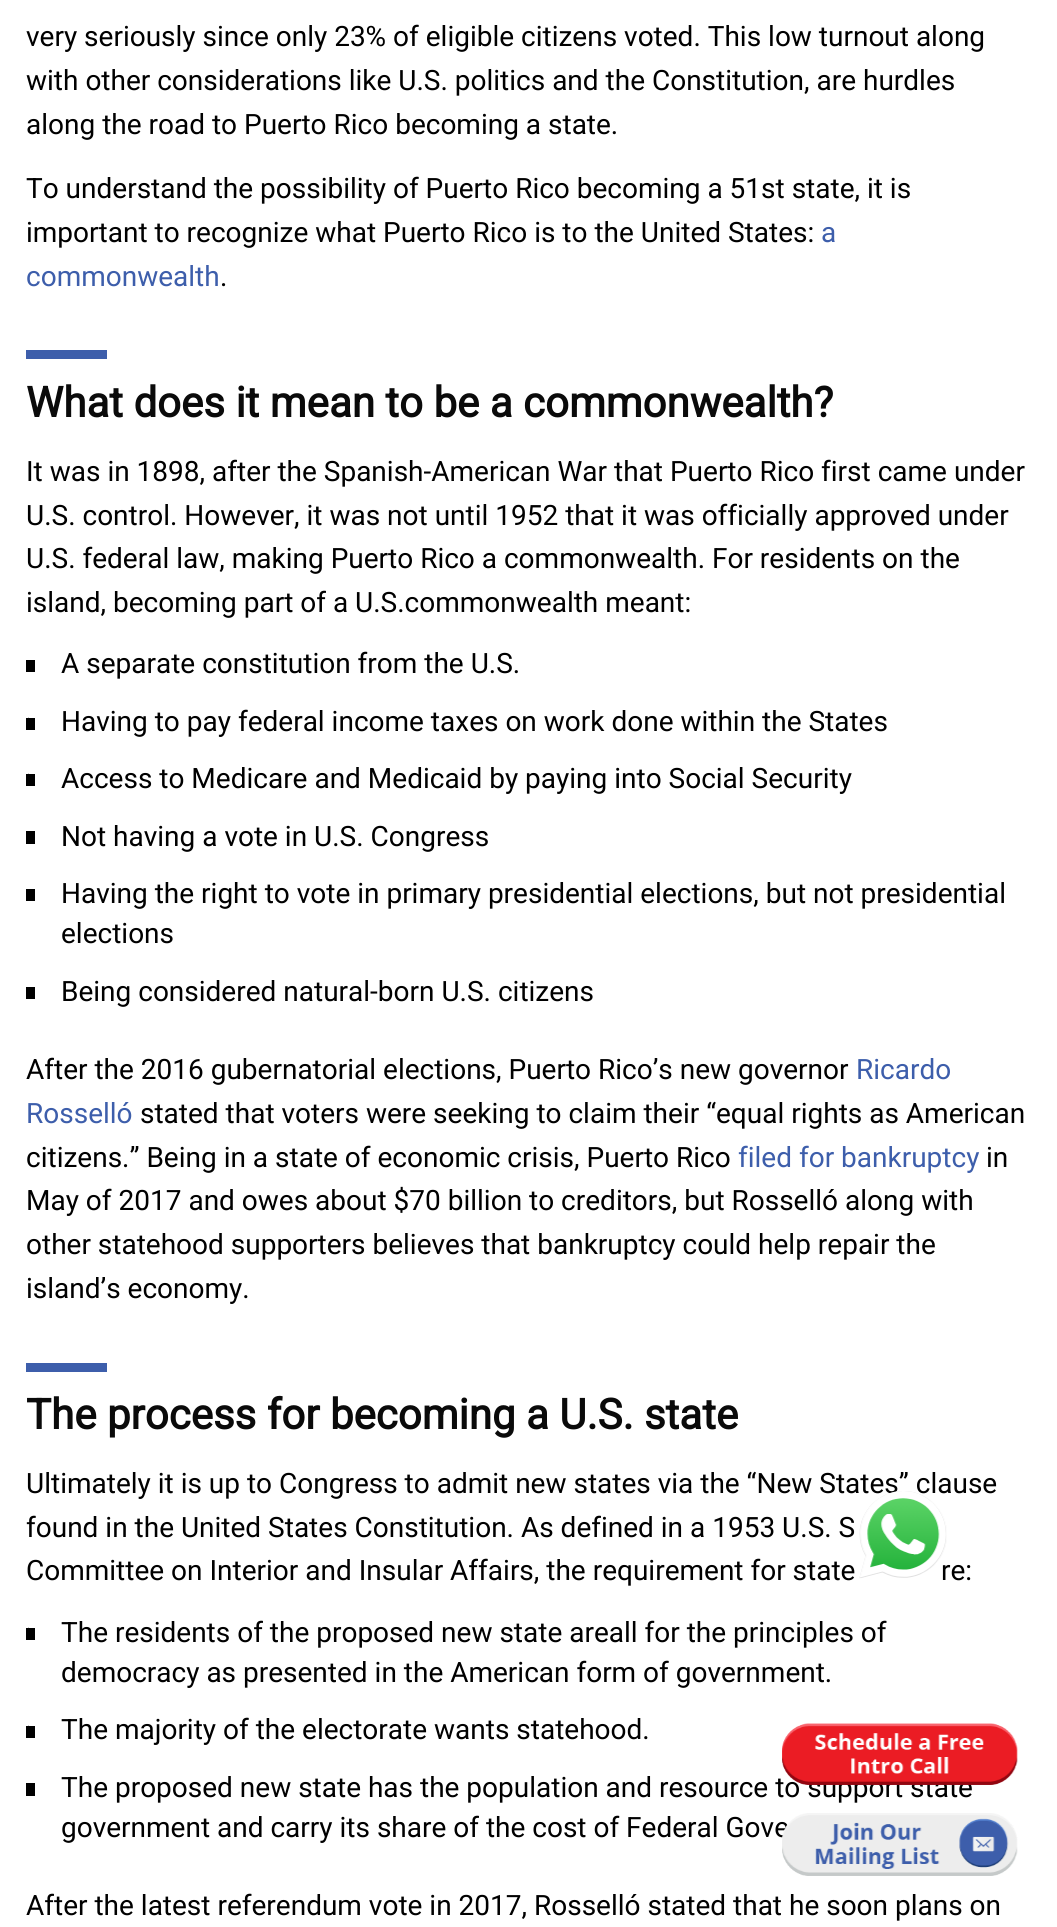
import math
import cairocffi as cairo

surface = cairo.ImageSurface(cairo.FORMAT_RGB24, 1057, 1927)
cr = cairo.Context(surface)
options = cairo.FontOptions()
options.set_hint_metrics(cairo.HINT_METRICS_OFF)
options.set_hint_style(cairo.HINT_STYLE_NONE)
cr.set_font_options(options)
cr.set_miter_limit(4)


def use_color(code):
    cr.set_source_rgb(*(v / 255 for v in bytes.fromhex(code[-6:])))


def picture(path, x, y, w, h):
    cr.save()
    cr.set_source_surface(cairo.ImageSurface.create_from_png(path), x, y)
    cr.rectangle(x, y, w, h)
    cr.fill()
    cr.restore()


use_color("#ffffff")
cr.paint()
cr.select_font_face("Roboto")
cr.set_font_size(28)
use_color("#000000")
cr.move_to(26, 46)
cr.show_text("very seriously since only 23% of eligible citizens voted. This low turnout along")
cr.move_to(26, 90)
cr.show_text("with other considerations like U.S. politics and the Constitution, are hurdles")
cr.move_to(26, 134)
cr.show_text("along the road to Puerto Rico becoming a state.")
cr.move_to(26, 198)
cr.show_text("To understand the possibility of Puerto Rico becoming a 51st state, it is")
cr.move_to(26, 242)
cr.show_text("important to recognize what Puerto Rico is to the United States:")
use_color("#3d5eab")
cr.move_to(821, 242)
cr.show_text("a")
cr.move_to(26, 286)
cr.show_text("commonwealth")
use_color("#000000")
cr.move_to(220, 286)
cr.show_text(".")
use_color("#3d5eab")
cr.rectangle(26, 350, 81, 9)
cr.fill()
cr.select_font_face("Roboto", cairo.FONT_SLANT_NORMAL, cairo.FONT_WEIGHT_BOLD)
cr.set_font_size(42)
use_color("#0a0a0a")
cr.move_to(26, 417)
cr.show_text("What does it mean to be a commonwealth?")
cr.select_font_face("Roboto")
cr.set_font_size(28)
use_color("#000000")
cr.move_to(26, 481)
cr.show_text("It was in 1898, after the Spanish-American War that Puerto Rico first came under")
cr.move_to(26, 525)
cr.show_text("U.S. control. However, it was not until 1952 that it was officially approved under")
cr.move_to(26, 568)
cr.show_text("U.S. federal law, making Puerto Rico a commonwealth. For residents on the")
cr.move_to(26, 612)
cr.show_text("island, becoming part of a U.S.commonwealth meant:")
cr.rectangle(26, 660, 9, 12)
cr.fill()
cr.move_to(61, 673)
cr.show_text("A separate constitution from the U.S.")
cr.rectangle(26, 718, 9, 12)
cr.fill()
use_color("#cfcfcf")
cr.rectangle(28, 717, 1, 1)
cr.fill()
use_color("#000000")
cr.move_to(61, 731)
cr.show_text("Having to pay federal income taxes on work done within the States")
cr.rectangle(26, 774, 9, 12)
cr.fill()
use_color("#cfcfcf")
cr.rectangle(28, 773, 1, 1)
cr.fill()
use_color("#000000")
cr.move_to(61, 788)
cr.show_text("Access to Medicare and Medicaid by paying into Social Security")
cr.rectangle(26, 831, 9, 13)
cr.fill()
cr.move_to(61, 846)
cr.show_text("Not having a vote in U.S. Congress")
cr.rectangle(26, 889, 9, 12)
cr.fill()
cr.move_to(61, 903)
cr.show_text("Having the right to vote in primary presidential elections, but not presidential")
cr.move_to(61, 943)
cr.show_text("elections")
cr.rectangle(26, 987, 9, 12)
cr.fill()
cr.move_to(61, 1001)
cr.show_text("Being considered natural-born U.S. citizens")
cr.move_to(26, 1079)
cr.show_text("After the 2016 gubernatorial elections, Puerto Rico’s new governor")
use_color("#3d5eab")
cr.move_to(856, 1079)
cr.show_text("Ricardo")
cr.move_to(26, 1123)
cr.show_text("Rosselló")
use_color("#000000")
cr.move_to(140, 1123)
cr.show_text("stated that voters were seeking to claim their “equal rights as American")
cr.move_to(26, 1167)
cr.show_text("citizens.” Being in a state of economic crisis, Puerto Rico")
use_color("#3d5eab")
cr.move_to(738, 1167)
cr.show_text("filed for bankruptcy")
use_color("#000000")
cr.move_to(986, 1167)
cr.show_text("in")
cr.move_to(26, 1210)
cr.show_text("May of 2017 and owes about $70 billion to creditors, but Rosselló along with")
cr.move_to(26, 1254)
cr.show_text("other statehood supporters believes that bankruptcy could help repair the")
cr.move_to(26, 1298)
cr.show_text("island’s economy.")
use_color("#3d5eab")
cr.rectangle(26, 1363, 81, 9)
cr.fill()
cr.select_font_face("Roboto", cairo.FONT_SLANT_NORMAL, cairo.FONT_WEIGHT_BOLD)
cr.set_font_size(42)
use_color("#0a0a0a")
cr.move_to(26, 1429)
cr.show_text("The process for becoming a U.S. state")
cr.select_font_face("Roboto")
cr.set_font_size(28)
use_color("#000000")
cr.move_to(26, 1493)
cr.show_text("Ultimately it is up to Congress to admit new states via the “New States” clause")
cr.move_to(26, 1537)
cr.show_text("found in the United States Constitution. As defined in a 1953 U.S. S")
cr.move_to(26, 1580)
cr.show_text("Committee on Interior and Insular Affairs, the requirement for state")
cr.move_to(941, 1580)
cr.show_text("re:")
cr.rectangle(26, 1628, 9, 12)
cr.fill()
use_color("#cfcfcf")
cr.rectangle(28, 1627, 1, 1)
cr.fill()
use_color("#000000")
cr.move_to(61, 1642)
cr.show_text("The residents of the proposed new state areall for the principles of")
cr.move_to(61, 1682)
cr.show_text("democracy as presented in the American form of government.")
cr.rectangle(26, 1726, 9, 12)
cr.fill()
use_color("#cfcfcf")
cr.rectangle(28, 1725, 1, 1)
cr.fill()
use_color("#000000")
cr.move_to(61, 1739)
cr.show_text("The majority of the electorate wants statehood.")
cr.rectangle(26, 1783, 9, 13)
cr.fill()
cr.move_to(61, 1797)
cr.show_text("The proposed new state has the population and resource to support state")
cr.move_to(61, 1837)
cr.show_text("government and carry its share of the cost of Federal Gove")
cr.move_to(26, 1915)
cr.show_text("After the latest referendum vote in 2017, Rosselló stated that he soon plans on")
picture("img1.png", 782, 1723, 236, 62)
picture("img2.png", 782, 1813, 236, 63)
picture("img3.png", 782, 1723, 236, 62)
picture("img4.png", 782, 1824, 236, 52)
picture("img5.png", 859, 1491, 88, 88)
surface.write_to_png("result.png")
